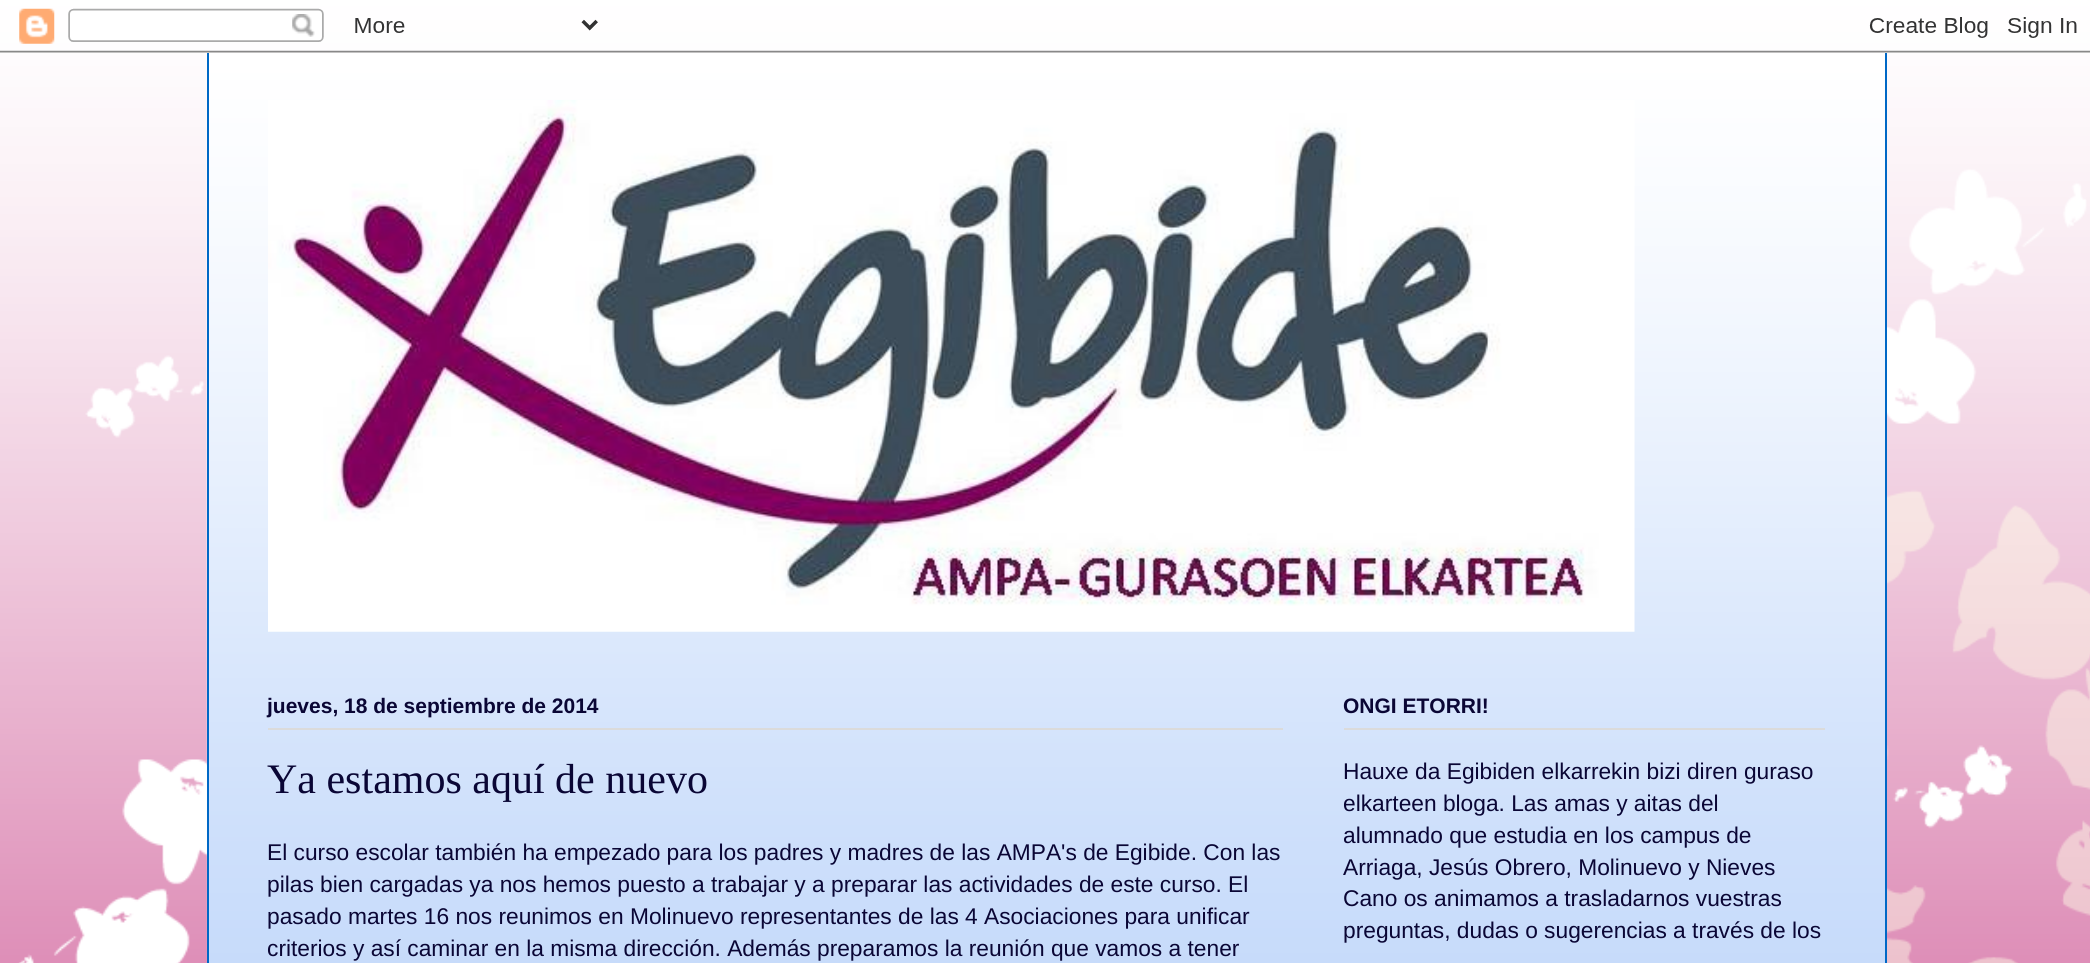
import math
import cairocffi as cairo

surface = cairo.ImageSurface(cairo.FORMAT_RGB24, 2090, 963)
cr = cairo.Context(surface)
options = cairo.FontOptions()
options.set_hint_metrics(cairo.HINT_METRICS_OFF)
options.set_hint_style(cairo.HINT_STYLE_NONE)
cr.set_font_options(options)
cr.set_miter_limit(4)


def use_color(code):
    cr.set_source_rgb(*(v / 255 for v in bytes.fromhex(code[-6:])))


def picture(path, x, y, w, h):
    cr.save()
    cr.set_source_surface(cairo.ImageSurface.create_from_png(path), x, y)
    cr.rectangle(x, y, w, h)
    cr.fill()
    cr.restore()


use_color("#c63d84")
cr.paint()
picture("img1.png", 0, 0, 2090, 963)
picture("img2.png", 0, 8, 2090, 45)
use_color("#c2d8fa")
cr.rectangle(209, 64, 1676, 899)
cr.fill()
picture("img3.png", 206, 53, 1679, 910)
use_color("#0068c6")
cr.rectangle(1885, 53, 2, 910)
cr.fill()
cr.rectangle(207, 53, 2, 910)
cr.fill()
picture("img4.png", 268, 100, 1367, 532)
use_color("#dbdbdb")
cr.rectangle(268, 728, 1015, 2)
cr.fill()
cr.select_font_face("Liberation Sans", cairo.FONT_SLANT_NORMAL, cairo.FONT_WEIGHT_BOLD)
cr.set_font_size(21)
use_color("#0a0635")
cr.move_to(267, 713)
cr.show_text("jueves, 18 de septiembre de 2014")
cr.select_font_face("Liberation Serif")
cr.set_font_size(42)
cr.move_to(267, 793)
cr.show_text("Ya estamos aquí de nuevo")
cr.select_font_face("Liberation Sans")
cr.set_font_size(22.75)
cr.move_to(267, 860)
cr.show_text("El curso escolar también ha empezado para los padres y madres de las AMPA's de Egibide. Con las")
cr.move_to(267, 892)
cr.show_text("pilas bien cargadas ya nos hemos puesto a trabajar y a preparar las actividades de este curso. El")
cr.move_to(267, 924)
cr.show_text("pasado martes 16 nos reunimos en Molinuevo representantes de las 4 Asociaciones para unificar")
cr.move_to(267, 956)
cr.show_text("criterios y así caminar en la misma dirección. Además preparamos la reunión que vamos a tener")
use_color("#dbdbdb")
cr.rectangle(1344, 728, 481, 2)
cr.fill()
cr.select_font_face("Liberation Sans", cairo.FONT_SLANT_NORMAL, cairo.FONT_WEIGHT_BOLD)
cr.set_font_size(21)
use_color("#0a0635")
cr.move_to(1343, 713)
cr.show_text("ONGI ETORRI!")
cr.select_font_face("Liberation Sans")
cr.set_font_size(22.75)
cr.move_to(1343, 779)
cr.show_text("Hauxe da Egibiden elkarrekin bizi diren guraso")
cr.move_to(1343, 811)
cr.show_text("elkarteen bloga. Las amas y aitas del")
cr.move_to(1343, 843)
cr.show_text("alumnado que estudia en los campus de")
cr.move_to(1343, 875)
cr.show_text("Arriaga, Jesús Obrero, Molinuevo y Nieves")
cr.move_to(1343, 906)
cr.show_text("Cano os animamos a trasladarnos vuestras")
cr.move_to(1343, 938)
cr.show_text("preguntas, dudas o sugerencias a través de los")
surface.write_to_png("result.png")
